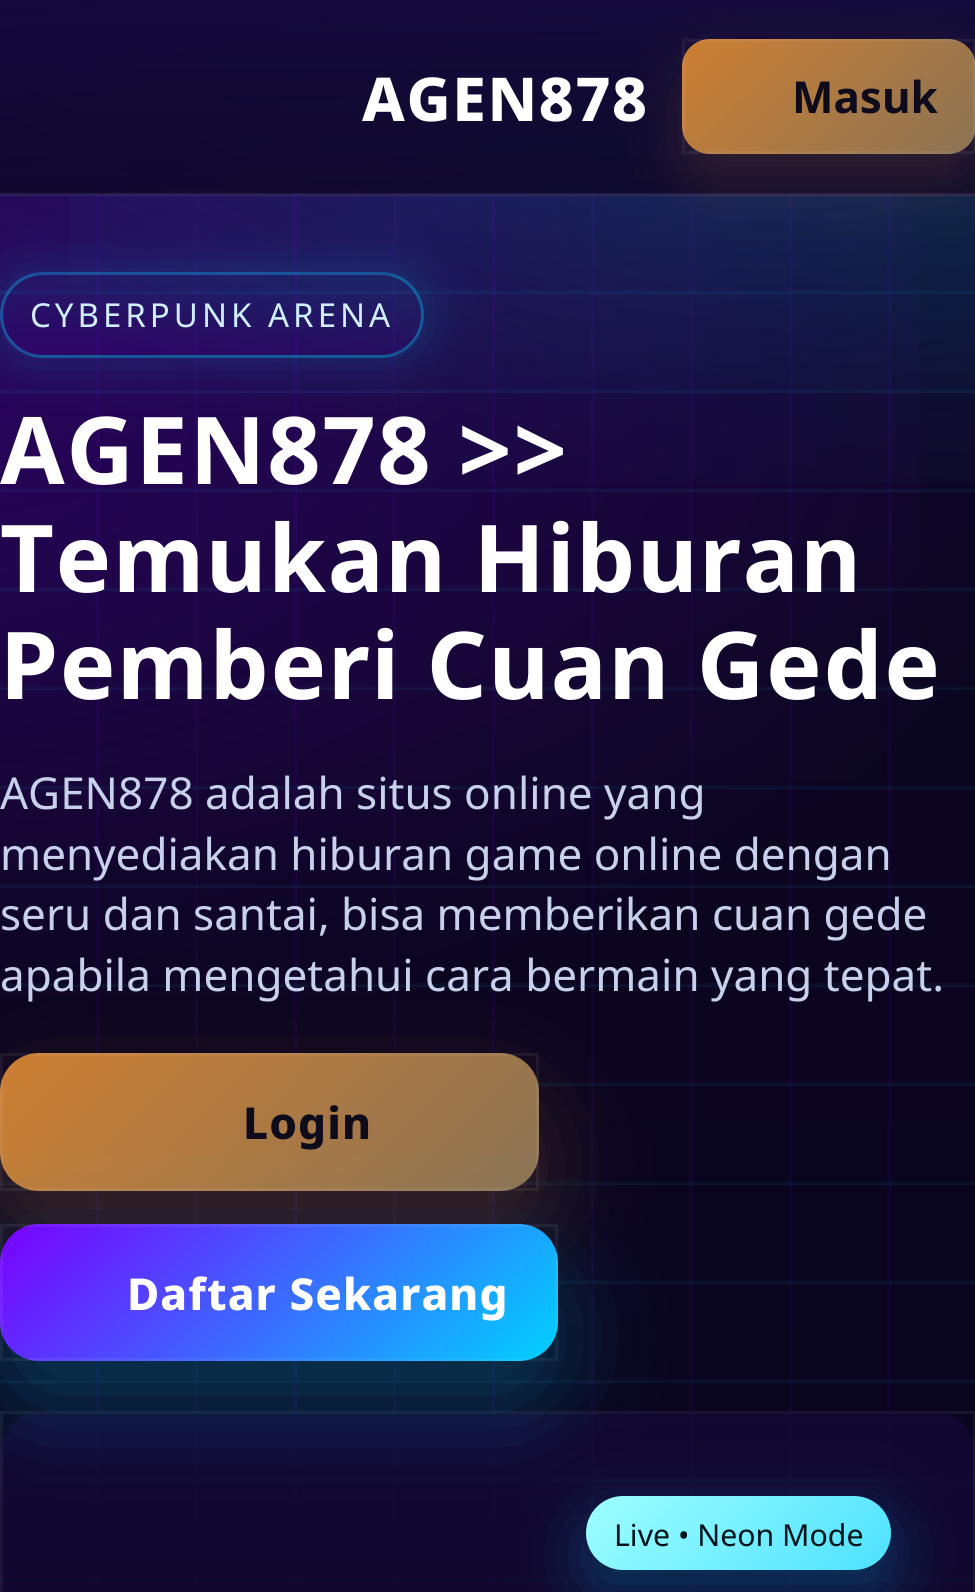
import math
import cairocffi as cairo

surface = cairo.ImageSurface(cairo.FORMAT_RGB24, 975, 1592)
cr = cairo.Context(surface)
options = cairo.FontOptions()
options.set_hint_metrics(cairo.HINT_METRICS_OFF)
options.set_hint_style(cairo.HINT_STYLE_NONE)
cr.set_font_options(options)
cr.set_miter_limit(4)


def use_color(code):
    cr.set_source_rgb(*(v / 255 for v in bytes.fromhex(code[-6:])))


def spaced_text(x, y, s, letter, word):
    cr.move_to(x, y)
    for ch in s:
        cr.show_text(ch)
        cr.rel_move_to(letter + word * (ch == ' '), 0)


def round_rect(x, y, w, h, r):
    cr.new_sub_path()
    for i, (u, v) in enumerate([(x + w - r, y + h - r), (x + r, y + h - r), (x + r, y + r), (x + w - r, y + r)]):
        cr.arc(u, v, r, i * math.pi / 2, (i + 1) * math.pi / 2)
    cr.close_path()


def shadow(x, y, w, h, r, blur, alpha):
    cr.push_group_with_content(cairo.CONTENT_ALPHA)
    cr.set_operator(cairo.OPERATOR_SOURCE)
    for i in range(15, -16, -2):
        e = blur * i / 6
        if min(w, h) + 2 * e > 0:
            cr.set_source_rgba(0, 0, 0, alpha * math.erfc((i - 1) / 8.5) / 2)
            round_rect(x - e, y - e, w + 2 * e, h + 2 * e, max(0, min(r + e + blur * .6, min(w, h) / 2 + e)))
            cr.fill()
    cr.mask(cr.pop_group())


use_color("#ffffff")
cr.paint()
gradient = cairo.LinearGradient(488, 0, 488, 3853)
gradient.add_color_stop_rgba(0, 0.047, 0.024, 0.133, 1)
gradient.add_color_stop_rgba(1, 0.027, 0.012, 0.094, 1)
cr.set_source(gradient)
cr.rectangle(0, 0, 975, 1592)
cr.fill()
gradient = cairo.RadialGradient(0, 0, 0, 0, 0, 1)
gradient.set_matrix(cairo.Matrix(1 / 2750, 0, 0, 1 / 1650, -1 * -195 / 2750, -1 * 0 / 1650))
gradient.add_color_stop_rgba(0, 0.482, 0.012, 1, 0.18)
gradient.add_color_stop_rgba(0.6, 0.482, 0.012, 1, 0)
cr.set_source(gradient)
cr.rectangle(0, 0, 975, 863)
cr.fill()
gradient = cairo.RadialGradient(0, 0, 0, 0, 0, 1)
gradient.set_matrix(cairo.Matrix(1 / 3300, 0, 0, 1 / 1650, -1 * 1172 / 3300, -1 * -385 / 1650))
gradient.add_color_stop_rgba(0, 0.012, 0.82, 1, 0.18)
gradient.add_color_stop_rgba(0.6, 0.012, 0.82, 1, 0)
cr.set_source(gradient)
cr.rectangle(0, 0, 975, 483)
cr.fill()
gradient = cairo.LinearGradient(488, 0, 488, 193)
gradient.add_color_stop_rgba(0, 0.078, 0.031, 0.22, 0.8)
gradient.add_color_stop_rgba(1, 0.039, 0.012, 0.125, 0.6)
cr.set_source(gradient)
cr.rectangle(0, 0, 975, 193)
cr.fill()
gradient = cairo.LinearGradient(488, 192, 488, 385)
gradient.add_color_stop_rgba(0, 0.078, 0.031, 0.22, 0.8)
gradient.add_color_stop_rgba(1, 0.039, 0.012, 0.125, 0.6)
cr.set_source(gradient)
cr.rectangle(0, 193, 975, 2)
cr.fill()
gradient = cairo.RadialGradient(0, 0, 0, 0, 0, 1)
gradient.set_matrix(cairo.Matrix(1 / 1925, 0, 0, 1 / 1100, -1 * -98 / 1925, -1 * 420 / 1100))
gradient.add_color_stop_rgba(0, 0.478, 0, 1, 0.18)
gradient.add_color_stop_rgba(0.6, 0.478, 0, 1, 0)
cr.set_source(gradient)
cr.rectangle(0, 195, 919, 802)
cr.fill()
gradient = cairo.RadialGradient(0, 0, 0, 0, 0, 1)
gradient.set_matrix(cairo.Matrix(1 / 1650, 0, 0, 1 / 825, -1 * 781 / 1650, -1 * -29 / 825))
gradient.add_color_stop_rgba(0, 0, 0.82, 1, 0.15)
gradient.add_color_stop_rgba(0.6, 0, 0.82, 1, 0)
cr.set_source(gradient)
cr.rectangle(70, 195, 905, 197)
cr.fill()
gradient = cairo.LinearGradient(0, 1319, 99, 1319)
gradient.add_color_stop_rgba(0.95, 0.478, 0, 1, 0)
gradient.add_color_stop_rgba(1, 0.478, 0, 1, 0.09)
cr.set_source(gradient)
cr.rectangle(95, 195, 4, 1397)
cr.fill()
gradient = cairo.LinearGradient(99, 1319, 198, 1319)
gradient.add_color_stop_rgba(0.95, 0.478, 0, 1, 0)
gradient.add_color_stop_rgba(1, 0.478, 0, 1, 0.09)
cr.set_source(gradient)
cr.rectangle(194, 195, 4, 1397)
cr.fill()
gradient = cairo.LinearGradient(198, 1319, 297, 1319)
gradient.add_color_stop_rgba(0.95, 0.478, 0, 1, 0)
gradient.add_color_stop_rgba(1, 0.478, 0, 1, 0.09)
cr.set_source(gradient)
cr.rectangle(293, 195, 4, 1397)
cr.fill()
gradient = cairo.LinearGradient(297, 1319, 396, 1319)
gradient.add_color_stop_rgba(0.95, 0.478, 0, 1, 0)
gradient.add_color_stop_rgba(1, 0.478, 0, 1, 0.09)
cr.set_source(gradient)
cr.rectangle(392, 195, 4, 1397)
cr.fill()
gradient = cairo.LinearGradient(396, 1319, 495, 1319)
gradient.add_color_stop_rgba(0.95, 0.478, 0, 1, 0)
gradient.add_color_stop_rgba(1, 0.478, 0, 1, 0.09)
cr.set_source(gradient)
cr.rectangle(491, 195, 4, 1397)
cr.fill()
gradient = cairo.LinearGradient(495, 1319, 594, 1319)
gradient.add_color_stop_rgba(0.95, 0.478, 0, 1, 0)
gradient.add_color_stop_rgba(1, 0.478, 0, 1, 0.09)
cr.set_source(gradient)
cr.rectangle(590, 195, 4, 1397)
cr.fill()
gradient = cairo.LinearGradient(594, 1319, 693, 1319)
gradient.add_color_stop_rgba(0.95, 0.478, 0, 1, 0)
gradient.add_color_stop_rgba(1, 0.478, 0, 1, 0.09)
cr.set_source(gradient)
cr.rectangle(689, 195, 4, 1397)
cr.fill()
gradient = cairo.LinearGradient(693, 1319, 792, 1319)
gradient.add_color_stop_rgba(0.95, 0.478, 0, 1, 0)
gradient.add_color_stop_rgba(1, 0.478, 0, 1, 0.09)
cr.set_source(gradient)
cr.rectangle(788, 195, 4, 1397)
cr.fill()
gradient = cairo.LinearGradient(792, 1319, 891, 1319)
gradient.add_color_stop_rgba(0.95, 0.478, 0, 1, 0)
gradient.add_color_stop_rgba(1, 0.478, 0, 1, 0.09)
cr.set_source(gradient)
cr.rectangle(887, 195, 4, 1397)
cr.fill()
cr.set_source_rgba(1, 1, 1, 0.08)
cr.rectangle(0, 193, 975, 3)
cr.fill()
cr.select_font_face("Noto Sans ExtraBold")
cr.set_font_size(60.5)
use_color("#ffffff")
spaced_text(362, 121, "AGEN878", 1.6, 0)
use_color("#cd7f32")
shadow(682, 66, 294, 116, 28, 30, 0.18)
gradient = cairo.LinearGradient(727, -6.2, 932, 199)
gradient.add_color_stop_rgba(0, 0.804, 0.498, 0.196, 1)
gradient.add_color_stop_rgba(1, 0.545, 0.451, 0.333, 1)
cr.set_source(gradient)
round_rect(682, 39, 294, 115, 28)
cr.fill()
cr.rectangle(683.5, 40.5, 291, 112)
cr.set_source_rgba(1, 1, 1, 0.06)
cr.set_line_width(3)
cr.stroke()
cr.select_font_face("Noto Sans", cairo.FONT_SLANT_NORMAL, cairo.FONT_WEIGHT_BOLD)
cr.set_font_size(44)
use_color("#0e0b1a")
cr.move_to(792, 113)
cr.show_text("Masuk")
gradient = cairo.LinearGradient(488, 195, 488, 294)
gradient.add_color_stop_rgba(0.95, 0, 0.82, 1, 0)
gradient.add_color_stop_rgba(1, 0, 0.82, 1, 0.09)
cr.set_source(gradient)
cr.rectangle(0, 290, 975, 4)
cr.fill()
gradient = cairo.LinearGradient(488, 294, 488, 393)
gradient.add_color_stop_rgba(0.95, 0, 0.82, 1, 0)
gradient.add_color_stop_rgba(1, 0, 0.82, 1, 0.09)
cr.set_source(gradient)
cr.rectangle(0, 389, 975, 4)
cr.fill()
gradient = cairo.LinearGradient(488, 393, 488, 492)
gradient.add_color_stop_rgba(0.95, 0, 0.82, 1, 0)
gradient.add_color_stop_rgba(1, 0, 0.82, 1, 0.09)
cr.set_source(gradient)
cr.rectangle(0, 488, 975, 4)
cr.fill()
gradient = cairo.LinearGradient(488, 492, 488, 591)
gradient.add_color_stop_rgba(0.95, 0, 0.82, 1, 0)
gradient.add_color_stop_rgba(1, 0, 0.82, 1, 0.09)
cr.set_source(gradient)
cr.rectangle(0, 587, 975, 4)
cr.fill()
gradient = cairo.LinearGradient(488, 591, 488, 690)
gradient.add_color_stop_rgba(0.95, 0, 0.82, 1, 0)
gradient.add_color_stop_rgba(1, 0, 0.82, 1, 0.09)
cr.set_source(gradient)
cr.rectangle(0, 686, 975, 4)
cr.fill()
gradient = cairo.LinearGradient(488, 690, 488, 789)
gradient.add_color_stop_rgba(0.95, 0, 0.82, 1, 0)
gradient.add_color_stop_rgba(1, 0, 0.82, 1, 0.09)
cr.set_source(gradient)
cr.rectangle(0, 785, 975, 4)
cr.fill()
gradient = cairo.LinearGradient(488, 789, 488, 888)
gradient.add_color_stop_rgba(0.95, 0, 0.82, 1, 0)
gradient.add_color_stop_rgba(1, 0, 0.82, 1, 0.09)
cr.set_source(gradient)
cr.rectangle(0, 884, 975, 4)
cr.fill()
gradient = cairo.LinearGradient(488, 888, 488, 987)
gradient.add_color_stop_rgba(0.95, 0, 0.82, 1, 0)
gradient.add_color_stop_rgba(1, 0, 0.82, 1, 0.09)
cr.set_source(gradient)
cr.rectangle(0, 983, 975, 4)
cr.fill()
gradient = cairo.LinearGradient(488, 987, 488, 1086)
gradient.add_color_stop_rgba(0.95, 0, 0.82, 1, 0)
gradient.add_color_stop_rgba(1, 0, 0.82, 1, 0.09)
cr.set_source(gradient)
cr.rectangle(0, 1082, 975, 4)
cr.fill()
gradient = cairo.LinearGradient(488, 1086, 488, 1185)
gradient.add_color_stop_rgba(0.95, 0.027, 0.298, 0.431, 0)
gradient.add_color_stop_rgba(1, 0.027, 0.298, 0.431, 0.25)
cr.set_source(gradient)
cr.rectangle(0, 1181, 975, 4)
cr.fill()
gradient = cairo.LinearGradient(488, 1185, 488, 1284)
gradient.add_color_stop_rgba(0.95, 0.027, 0.298, 0.431, 0)
gradient.add_color_stop_rgba(1, 0.027, 0.298, 0.431, 0.25)
cr.set_source(gradient)
cr.rectangle(558, 1280, 417, 4)
cr.fill()
gradient = cairo.LinearGradient(488, 1284, 488, 1383)
gradient.add_color_stop_rgba(0.95, 0.027, 0.298, 0.427, 0)
gradient.add_color_stop_rgba(1, 0.027, 0.298, 0.427, 0.25)
cr.set_source(gradient)
cr.rectangle(0, 1379, 975, 4)
cr.fill()
gradient = cairo.LinearGradient(488, 1383, 488, 1482)
gradient.add_color_stop_rgba(0.95, 0.027, 0.298, 0.427, 0)
gradient.add_color_stop_rgba(1, 0.027, 0.298, 0.427, 0.25)
cr.set_source(gradient)
cr.rectangle(0, 1478, 975, 4)
cr.fill()
gradient = cairo.LinearGradient(488, 1482, 488, 1581)
gradient.add_color_stop_rgba(0.95, 0.027, 0.298, 0.427, 0)
gradient.add_color_stop_rgba(1, 0.027, 0.298, 0.427, 0.25)
cr.set_source(gradient)
cr.rectangle(0, 1577, 975, 4)
cr.fill()
cr.save()
cr.set_fill_rule(cairo.FILL_RULE_EVEN_ODD)
cr.new_path()
cr.move_to(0, 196)
cr.line_to(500, 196)
cr.line_to(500, 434)
cr.line_to(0, 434)
cr.close_path()
cr.move_to(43, 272)
cr.line_to(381, 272)
cr.curve_to(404.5, 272, 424, 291.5, 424, 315)
cr.curve_to(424, 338.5, 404.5, 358, 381, 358)
cr.line_to(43, 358)
cr.curve_to(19.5, 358, 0, 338.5, 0, 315)
cr.curve_to(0, 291.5, 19.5, 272, 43, 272)
cr.close_path()
cr.clip()
use_color("#00d1ff")
shadow(0, 272, 424, 86, 43, 25, 0.2)
cr.restore()
cr.save()
round_rect(0, 272, 424, 86, 43)
cr.clip()
gradient = cairo.LinearGradient(212, 195, 212, 275)
gradient.add_color_stop_rgba(0, 0, 0.82, 1, 0.08)
gradient.add_color_stop_rgba(1, 0.478, 0, 1, 0.08)
cr.set_source(gradient)
cr.rectangle(28, 272, 368, 3)
cr.fill()
gradient = cairo.LinearGradient(212, 275, 212, 355)
gradient.add_color_stop_rgba(0, 0, 0.82, 1, 0.08)
gradient.add_color_stop_rgba(1, 0.478, 0, 1, 0.08)
cr.set_source(gradient)
cr.rectangle(0, 275, 424, 80)
cr.fill()
gradient = cairo.LinearGradient(212, 355, 212, 435)
gradient.add_color_stop_rgba(0, 0, 0.82, 1, 0.08)
gradient.add_color_stop_rgba(1, 0.478, 0, 1, 0.08)
cr.set_source(gradient)
cr.rectangle(28, 355, 368, 3)
cr.fill()
cr.restore()
round_rect(1.5, 273.5, 421, 83, 41.5)
cr.set_source_rgba(0, 0.82, 1, 0.35)
cr.stroke()
cr.select_font_face("Noto Sans")
cr.set_font_size(33)
use_color("#cfefff")
spaced_text(30, 327, "CYBERPUNK ARENA", 4, 0)
cr.select_font_face("Noto Sans", cairo.FONT_SLANT_NORMAL, cairo.FONT_WEIGHT_BOLD)
cr.set_font_size(93.5)
use_color("#ffffff")
spaced_text(0, 484, "AGEN878 >>", 1.6, 0)
spaced_text(0, 592, "Temukan Hiburan", 1.6, 0)
spaced_text(0, 699, "Pemberi Cuan Gede", 1.6, 0)
cr.select_font_face("Noto Sans")
cr.set_font_size(44)
use_color("#c8d1eb")
cr.move_to(0, 809)
cr.show_text("AGEN878 adalah situs online yang")
cr.move_to(0, 870)
cr.show_text("menyediakan hiburan game online dengan")
cr.move_to(0, 930)
cr.show_text("seru dan santai,")
use_color("#cd7f32")
shadow(0, 1097, 539, 138, 39, 52, 0.25)
use_color("#c8d1eb")
cr.move_to(341, 930)
cr.show_text("bisa memberikan cuan gede")
cr.move_to(0, 991)
cr.show_text("apabila mengetahui cara bermain yang tepat.")
gradient = cairo.LinearGradient(100, 953, 439, 1291)
gradient.add_color_stop_rgba(0, 0.804, 0.498, 0.196, 1)
gradient.add_color_stop_rgba(1, 0.545, 0.451, 0.333, 1)
cr.set_source(gradient)
round_rect(0, 1053, 539, 138, 39)
cr.fill()
cr.rectangle(1.5, 1054.5, 536, 135)
cr.set_source_rgba(1, 1, 1, 0.06)
cr.stroke()
cr.select_font_face("Noto Sans ExtraBold")
use_color("#0e0b1a")
spaced_text(243, 1139, "Login", 1.1, 0)
cr.save()
round_rect(0, 1411, 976, 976, 44)
cr.clip()
gradient = cairo.LinearGradient(488, 443, 488, 1414)
gradient.add_color_stop_rgba(0, 0.078, 0.031, 0.22, 0.7)
gradient.add_color_stop_rgba(1, 0.039, 0.012, 0.125, 0.8)
cr.set_source(gradient)
cr.rectangle(28, 1411, 920, 3)
cr.fill()
gradient = cairo.LinearGradient(488, 1414, 488, 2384)
gradient.add_color_stop_rgba(0, 0.078, 0.031, 0.22, 0.7)
gradient.add_color_stop_rgba(1, 0.039, 0.012, 0.125, 0.8)
cr.set_source(gradient)
cr.rectangle(0, 1414, 975, 178)
cr.fill()
cr.restore()
cr.rectangle(1.5, 1412.5, 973, 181)
cr.set_source_rgba(1, 1, 1, 0.06)
cr.stroke()
use_color("#00d1ff")
shadow(586, 1518, 305, 74, 37, 36, 0.25)
gradient = cairo.LinearGradient(644, 1438, 833, 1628)
gradient.add_color_stop_rgba(0, 0.624, 1, 1, 1)
gradient.add_color_stop_rgba(1, 0.302, 0.882, 1, 1)
cr.set_source(gradient)
round_rect(586, 1496, 305, 74, 37)
cr.fill()
use_color("#00d1ff")
shadow(0, 1268, 558, 137, 39, 52, 0.25)
gradient = cairo.LinearGradient(105, 1119, 453, 1466)
gradient.add_color_stop_rgba(0, 0.478, 0, 1, 1)
gradient.add_color_stop_rgba(1, 0, 0.82, 1, 1)
cr.set_source(gradient)
round_rect(0, 1224, 558, 137, 39)
cr.fill()
cr.rectangle(1.5, 1225.5, 555, 134)
cr.set_source_rgba(1, 1, 1, 0.06)
cr.stroke()
use_color("#ffffff")
spaced_text(127, 1310, "Daftar Sekarang", 1.1, 0)
cr.select_font_face("Noto Sans")
cr.set_font_size(30.25)
use_color("#00131a")
cr.move_to(614, 1546)
cr.show_text("Live • Neon Mode")
surface.write_to_png("result.png")
